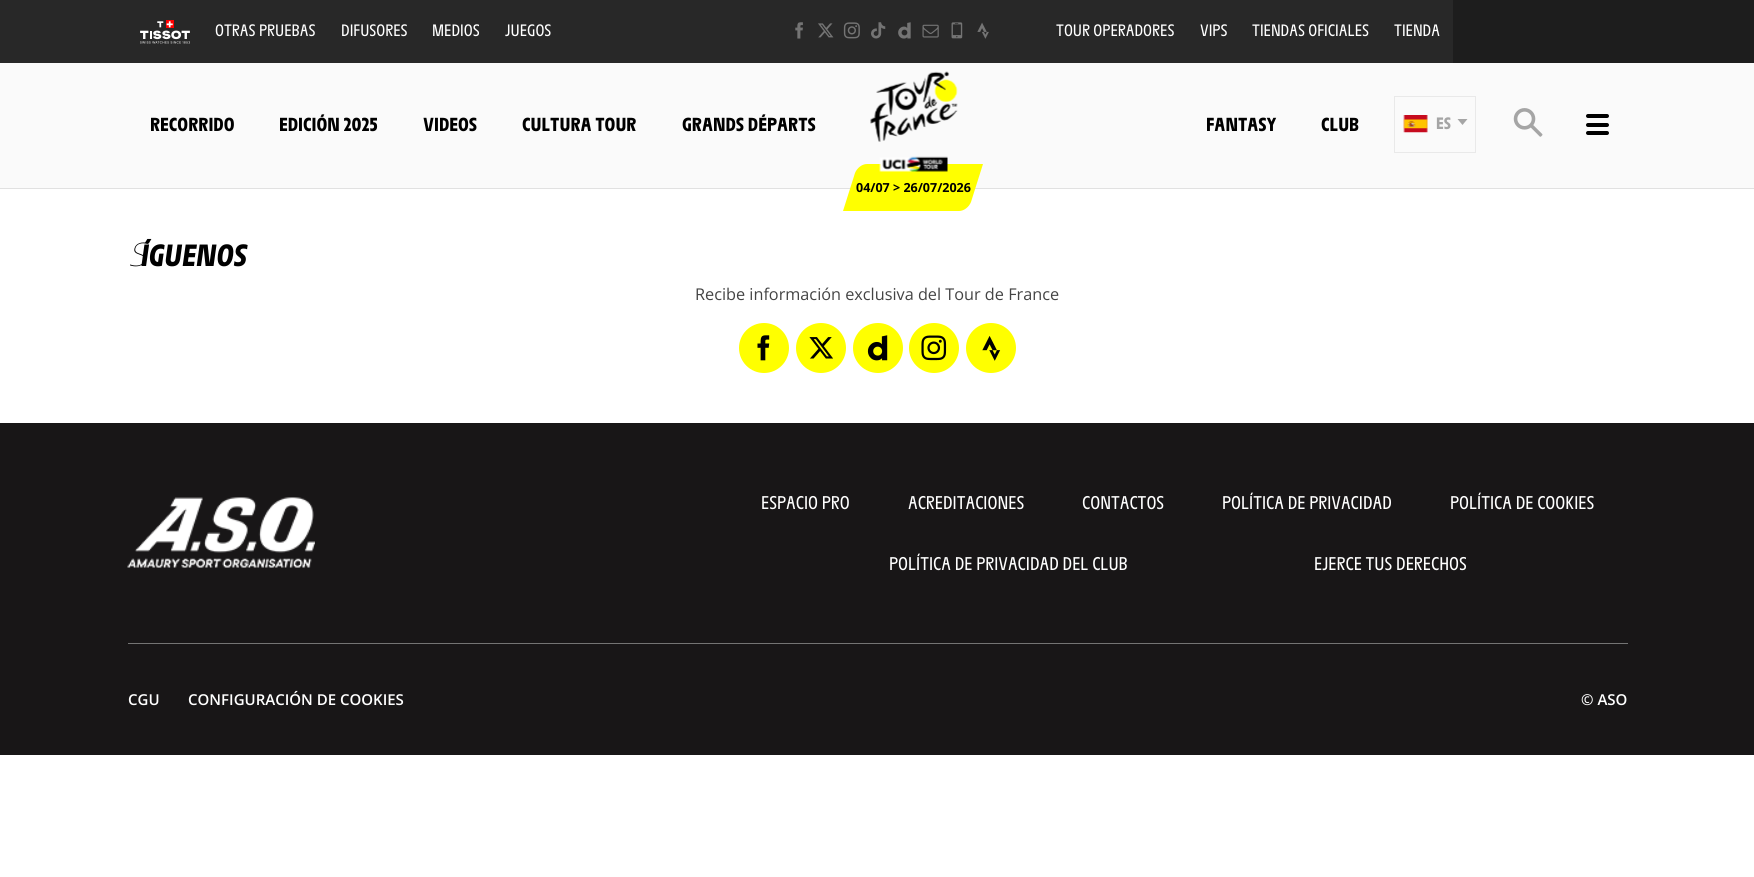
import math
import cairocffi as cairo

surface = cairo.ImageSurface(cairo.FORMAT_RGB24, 1754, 877)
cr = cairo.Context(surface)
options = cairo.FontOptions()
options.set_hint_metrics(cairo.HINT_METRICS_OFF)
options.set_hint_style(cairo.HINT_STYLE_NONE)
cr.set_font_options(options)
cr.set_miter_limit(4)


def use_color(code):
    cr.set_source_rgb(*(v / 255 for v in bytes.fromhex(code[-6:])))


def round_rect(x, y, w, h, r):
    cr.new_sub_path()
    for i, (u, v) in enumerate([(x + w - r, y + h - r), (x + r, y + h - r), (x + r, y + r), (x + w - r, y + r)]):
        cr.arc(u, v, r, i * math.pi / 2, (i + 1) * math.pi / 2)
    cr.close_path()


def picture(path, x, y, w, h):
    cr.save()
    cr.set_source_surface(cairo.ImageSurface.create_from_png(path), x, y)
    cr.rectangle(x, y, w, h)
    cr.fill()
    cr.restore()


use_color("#ffffff")
cr.paint()
use_color("#fafafa")
cr.rectangle(0, 63, 1754, 125)
cr.fill()
use_color("#e1e1e1")
cr.rectangle(0, 188, 1754, 1)
cr.fill()
use_color("#282828")
cr.rectangle(0, 0, 1453, 63)
cr.fill()
use_color("#1d1d1d")
cr.rectangle(1453, 0, 301, 63)
cr.fill()
picture("img1.png", 140, 20, 50, 24)
cr.select_font_face("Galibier")
cr.set_font_size(17.5)
use_color("#ffffff")
cr.move_to(215, 36)
cr.show_text("OTRAS PRUEBAS")
cr.move_to(341, 36)
cr.show_text("DIFUSORES")
cr.move_to(432, 36)
cr.show_text("MEDIOS")
cr.move_to(505, 36)
cr.show_text("JUEGOS")
picture("img2.png", 795, 22, 8, 17)
picture("img3.png", 818, 23, 16, 15)
picture("img4.png", 843, 22, 17, 17)
picture("img5.png", 871, 22, 15, 17)
picture("img6.png", 898, 22, 13, 17)
picture("img7.png", 922, 24, 17, 14)
picture("img8.png", 951, 22, 12, 17)
picture("img9.png", 977, 22, 12, 17)
cr.move_to(1056, 36)
cr.show_text("TOUR OPERADORES")
cr.move_to(1200, 36)
cr.show_text("VIPS")
cr.move_to(1252, 36)
cr.show_text("TIENDAS OFICIALES")
cr.move_to(1394, 36)
cr.show_text("TIENDA")
cr.select_font_face("Galibier", cairo.FONT_SLANT_NORMAL, cairo.FONT_WEIGHT_BOLD)
cr.set_font_size(20)
use_color("#000000")
cr.move_to(150, 131)
cr.show_text("RECORRIDO")
cr.move_to(279, 131)
cr.show_text("EDICIÓN 2025")
cr.move_to(423, 131)
cr.show_text("VIDEOS")
cr.move_to(522, 131)
cr.show_text("CULTURA TOUR")
cr.move_to(682, 131)
cr.show_text("GRANDS DÉPARTS")
cr.move_to(1206, 131)
cr.show_text("FANTASY")
cr.move_to(1321, 131)
cr.show_text("CLUB")
cr.rectangle(1394.5, 96.5, 81, 56)
use_color("#e9e9e9")
cr.set_line_width(1)
cr.stroke()
picture("img10.png", 1403, 115, 25, 18)
cr.set_font_size(17.5)
use_color("#a5a5a5")
cr.move_to(1436, 129)
cr.show_text("ES")
cr.new_path()
cr.move_to(1457.5, 119)
cr.line_to(1467.5, 119)
cr.line_to(1462.5, 125)
cr.close_path()
cr.fill()
picture("img11.png", 1513, 108, 30, 29)
use_color("#000000")
round_rect(1586, 114, 23, 4, 2)
cr.fill()
round_rect(1586, 123, 23, 4, 2)
cr.fill()
round_rect(1586, 131, 23, 4, 2)
cr.fill()
picture("img12.png", 870, 71, 88, 71)
use_color("#ffff00")
cr.new_path()
cr.move_to(867, 164)
cr.line_to(983, 164)
cr.line_to(971, 202)
cr.curve_to(969, 207, 964, 211, 959, 211)
cr.line_to(843, 211)
cr.line_to(855, 173)
cr.curve_to(857, 168, 862, 164, 867, 164)
cr.close_path()
cr.fill()
picture("img13.png", 879, 156, 69, 16)
cr.select_font_face("Open Sans", cairo.FONT_SLANT_NORMAL, cairo.FONT_WEIGHT_BOLD)
cr.set_font_size(12.5)
use_color("#000000")
cr.move_to(856, 192)
cr.show_text("04/07 > 26/07/2026")
cr.select_font_face("Noto Sans Thin", cairo.FONT_SLANT_ITALIC)
cr.set_font_size(32.5)
cr.move_to(128, 266)
cr.show_text("S")
cr.select_font_face("Galibier", cairo.FONT_SLANT_ITALIC, cairo.FONT_WEIGHT_BOLD)
cr.move_to(141, 266)
cr.show_text("ÍGUENOS")
cr.select_font_face("Open Sans")
cr.set_font_size(16.25)
use_color("#444444")
cr.move_to(695, 300)
cr.show_text("Recibe información exclusiva del Tour de France")
use_color("#ffff00")
cr.new_path()
cr.arc(764, 348, 25, 0, 2 * math.pi)
cr.fill()
picture("img14.png", 757, 335, 13, 26)
cr.arc(821, 348, 25, 0, 2 * math.pi)
cr.fill()
picture("img15.png", 809, 337, 24, 22)
cr.arc(878, 348, 25, 0, 2 * math.pi)
cr.fill()
picture("img16.png", 867, 335, 21, 26)
cr.arc(934, 348, 25, 0, 2 * math.pi)
cr.fill()
picture("img17.png", 921, 335, 26, 26)
cr.arc(991, 348, 25, 0, 2 * math.pi)
cr.fill()
picture("img18.png", 982, 336, 19, 25)
use_color("#181617")
cr.rectangle(0, 423, 1754, 332)
cr.fill()
picture("img19.png", 127, 497, 188, 71)
cr.select_font_face("Galibier")
cr.set_font_size(19.5)
use_color("#ffffff")
cr.move_to(761, 509)
cr.show_text("ESPACIO PRO")
cr.move_to(908, 509)
cr.show_text("ACREDITACIONES")
cr.move_to(1082, 509)
cr.show_text("CONTACTOS")
cr.move_to(1222, 509)
cr.show_text("POLÍTICA DE PRIVACIDAD")
cr.move_to(1450, 509)
cr.show_text("POLÍTICA DE COOKIES")
cr.move_to(889, 570)
cr.show_text("POLÍTICA DE PRIVACIDAD DEL CLUB")
cr.move_to(1314, 570)
cr.show_text("EJERCE TUS DERECHOS")
use_color("#747474")
cr.rectangle(128, 643, 1500, 1)
cr.fill()
cr.select_font_face("Open Sans SemiBold")
cr.set_font_size(15)
use_color("#ffffff")
cr.move_to(128, 705)
cr.show_text("CGU")
cr.move_to(188, 705)
cr.show_text("CONFIGURACIÓN DE COOKIES")
cr.move_to(1581, 705)
cr.show_text("© ASO")
surface.write_to_png("result.png")
